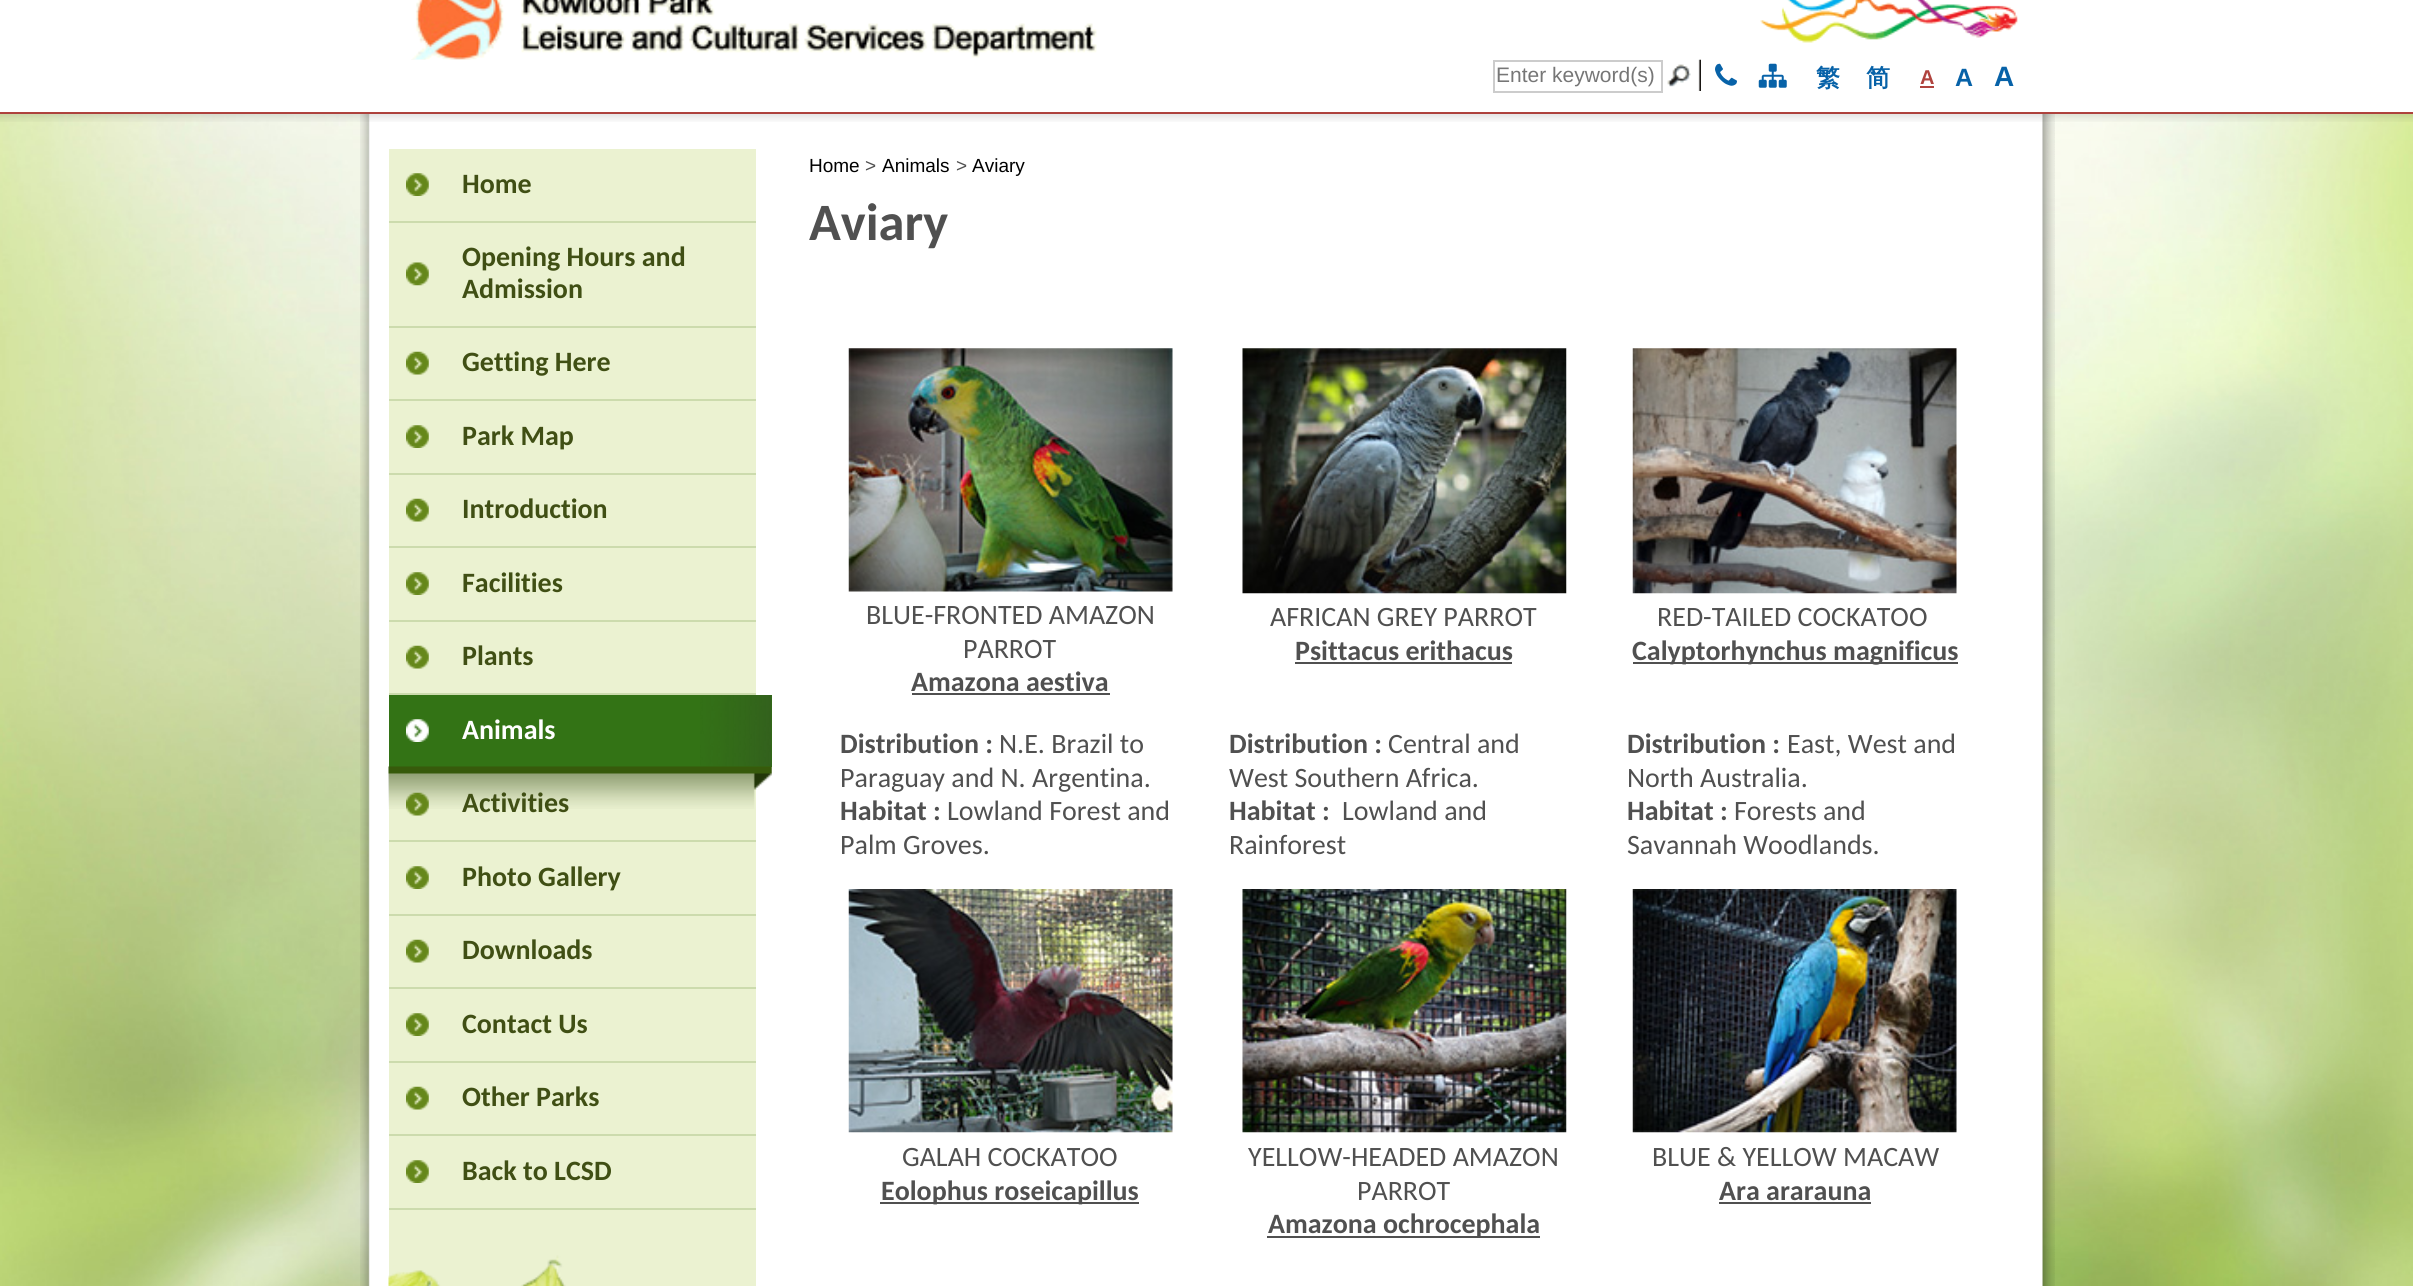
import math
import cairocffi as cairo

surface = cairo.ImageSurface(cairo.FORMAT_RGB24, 2413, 1286)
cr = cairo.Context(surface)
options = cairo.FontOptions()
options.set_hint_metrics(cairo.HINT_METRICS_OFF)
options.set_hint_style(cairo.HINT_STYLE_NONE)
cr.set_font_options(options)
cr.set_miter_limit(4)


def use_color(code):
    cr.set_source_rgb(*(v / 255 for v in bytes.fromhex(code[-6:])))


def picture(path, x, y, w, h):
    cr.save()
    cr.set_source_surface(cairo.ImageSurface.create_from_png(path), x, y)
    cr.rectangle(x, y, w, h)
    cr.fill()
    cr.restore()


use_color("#ffffff")
cr.paint()
picture("img1.png", 0, 114, 2413, 1172)
use_color("#b0433e")
cr.rectangle(0, 112, 2413, 2)
cr.fill()
picture("img2.png", 411, 0, 686, 60)
picture("img3.png", 1760, 0, 258, 43)
cr.rectangle(1494, 61, 168, 31)
use_color("#cccccc")
cr.stroke()
cr.select_font_face("Liberation Sans")
cr.set_font_size(21)
use_color("#767676")
cr.move_to(1496, 82)
cr.show_text("Enter keyword(s)")
picture("img4.png", 1667, 59, 34, 32)
picture("img5.png", 1715, 63, 22, 23)
picture("img6.png", 1758, 63, 29, 25)
cr.select_font_face("WenQuanYi Zen Hei", cairo.FONT_SLANT_NORMAL, cairo.FONT_WEIGHT_BOLD)
cr.set_font_size(24)
use_color("#0762a8")
cr.move_to(1816, 86)
cr.show_text("繁")
cr.move_to(1866, 86)
cr.show_text("简")
cr.select_font_face("Liberation Sans", cairo.FONT_SLANT_NORMAL, cairo.FONT_WEIGHT_BOLD)
cr.set_font_size(20)
use_color("#b0433e")
cr.move_to(1920, 84)
cr.show_text("A")
cr.rectangle(1920, 86, 14, 2)
cr.fill()
cr.set_font_size(25)
use_color("#0762a8")
cr.move_to(1955, 86)
cr.show_text("A")
cr.set_font_size(28)
cr.move_to(1994, 86)
cr.show_text("A")
picture("img8.png", 360, 114, 1695, 1172)
picture("img9.png", 360, 114, 1695, 1172)
use_color("#ffffff")
cr.rectangle(2041, 114, 1, 1172)
cr.fill()
picture("img7.png", 0, 113, 2413, 9)
use_color("#ebf2d1")
cr.rectangle(389, 149, 367, 1137)
cr.fill()
use_color("#ccdbad")
cr.rectangle(389, 221, 367, 2)
cr.fill()
picture("img10.png", 406, 173, 23, 23)
cr.select_font_face("Carlito", cairo.FONT_SLANT_NORMAL, cairo.FONT_WEIGHT_BOLD)
use_color("#404f14")
cr.move_to(462, 193)
cr.show_text("Home")
use_color("#ccdbad")
cr.rectangle(389, 326, 367, 2)
cr.fill()
picture("img11.png", 406, 262, 23, 24)
use_color("#404f14")
cr.move_to(462, 266)
cr.show_text("Opening Hours and")
cr.move_to(462, 298)
cr.show_text("Admission")
use_color("#ccdbad")
cr.rectangle(389, 399, 367, 2)
cr.fill()
picture("img12.png", 406, 351, 23, 24)
use_color("#404f14")
cr.move_to(462, 371)
cr.show_text("Getting Here")
use_color("#ccdbad")
cr.rectangle(389, 473, 367, 2)
cr.fill()
picture("img10.png", 406, 425, 23, 23)
use_color("#404f14")
cr.move_to(462, 445)
cr.show_text("Park Map")
use_color("#ccdbad")
cr.rectangle(389, 546, 367, 2)
cr.fill()
picture("img12.png", 406, 498, 23, 24)
use_color("#404f14")
cr.move_to(462, 518)
cr.show_text("Introduction")
use_color("#ccdbad")
cr.rectangle(389, 620, 367, 2)
cr.fill()
picture("img10.png", 406, 572, 23, 23)
use_color("#404f14")
cr.move_to(462, 592)
cr.show_text("Facilities")
use_color("#ccdbad")
cr.rectangle(389, 693, 367, 2)
cr.fill()
picture("img12.png", 406, 645, 23, 24)
use_color("#404f14")
cr.move_to(462, 665)
cr.show_text("Plants")
use_color("#337315")
cr.rectangle(389, 695, 383, 72)
cr.fill()
picture("img13.png", 406, 719, 23, 23)
use_color("#ffffff")
cr.move_to(462, 739)
cr.show_text("Animals")
picture("img14.png", 700, 695, 72, 72)
picture("img15.png", 388, 766, 384, 43)
use_color("#ccdbad")
cr.rectangle(389, 840, 367, 2)
cr.fill()
picture("img16.png", 406, 792, 23, 24)
use_color("#404f14")
cr.move_to(462, 812)
cr.show_text("Activities")
use_color("#ccdbad")
cr.rectangle(389, 914, 367, 2)
cr.fill()
picture("img10.png", 406, 866, 23, 23)
use_color("#404f14")
cr.move_to(462, 886)
cr.show_text("Photo Gallery")
use_color("#ccdbad")
cr.rectangle(389, 987, 367, 2)
cr.fill()
picture("img12.png", 406, 939, 23, 24)
use_color("#404f14")
cr.move_to(462, 959)
cr.show_text("Downloads")
use_color("#ccdbad")
cr.rectangle(389, 1061, 367, 2)
cr.fill()
picture("img10.png", 406, 1013, 23, 23)
use_color("#404f14")
cr.move_to(462, 1033)
cr.show_text("Contact Us")
use_color("#ccdbad")
cr.rectangle(389, 1134, 367, 2)
cr.fill()
picture("img12.png", 406, 1086, 23, 24)
use_color("#404f14")
cr.move_to(462, 1106)
cr.show_text("Other Parks")
use_color("#ccdbad")
cr.rectangle(389, 1208, 367, 2)
cr.fill()
picture("img10.png", 406, 1160, 23, 23)
use_color("#404f14")
cr.move_to(462, 1180)
cr.show_text("Back to LCSD")
picture("img17.png", 388, 1255, 178, 31)
cr.select_font_face("Liberation Sans")
cr.set_font_size(19)
use_color("#000000")
cr.move_to(809, 172)
cr.show_text("Home")
use_color("#505050")
cr.move_to(865, 172)
cr.show_text(">")
use_color("#000000")
cr.move_to(882, 172)
cr.show_text("Animals")
use_color("#505050")
cr.move_to(956, 172)
cr.show_text(">")
use_color("#000000")
cr.move_to(972, 172)
cr.show_text("Aviary")
cr.select_font_face("Carlito", cairo.FONT_SLANT_NORMAL, cairo.FONT_WEIGHT_BOLD)
cr.set_font_size(52.5)
use_color("#505050")
cr.move_to(809, 240)
cr.show_text("Aviary")
picture("img18.png", 848, 348, 325, 244)
cr.select_font_face("Carlito")
cr.set_font_size(28)
cr.move_to(866, 624)
cr.show_text("BLUE-FRONTED AMAZON")
cr.move_to(963, 658)
cr.show_text("PARROT")
cr.select_font_face("Carlito", cairo.FONT_SLANT_NORMAL, cairo.FONT_WEIGHT_BOLD)
cr.move_to(911, 691)
cr.show_text("Amazona aestiva")
cr.rectangle(912, 693, 198, 2)
cr.fill()
picture("img19.png", 1242, 348, 325, 246)
cr.select_font_face("Carlito")
cr.move_to(1270, 626)
cr.show_text("AFRICAN GREY PARROT")
cr.select_font_face("Carlito", cairo.FONT_SLANT_NORMAL, cairo.FONT_WEIGHT_BOLD)
cr.move_to(1295, 660)
cr.show_text("Psittacus erithacus")
cr.rectangle(1295, 662, 217, 2)
cr.fill()
picture("img20.png", 1632, 348, 325, 246)
cr.select_font_face("Carlito")
cr.move_to(1657, 626)
cr.show_text("RED-TAILED COCKATOO")
cr.rectangle(1633, 662, 325, 2)
cr.fill()
cr.select_font_face("Carlito", cairo.FONT_SLANT_NORMAL, cairo.FONT_WEIGHT_BOLD)
cr.move_to(1632, 660)
cr.show_text("Calyptorhynchus magnificus")
cr.move_to(840, 753)
cr.show_text("Distribution :")
cr.select_font_face("Carlito")
cr.move_to(999, 753)
cr.show_text("N.E. Brazil to")
cr.move_to(840, 787)
cr.show_text("Paraguay and N. Argentina.")
cr.select_font_face("Carlito", cairo.FONT_SLANT_NORMAL, cairo.FONT_WEIGHT_BOLD)
cr.move_to(840, 820)
cr.show_text("Habitat :")
cr.select_font_face("Carlito")
cr.move_to(947, 820)
cr.show_text("Lowland Forest and")
cr.move_to(840, 854)
cr.show_text("Palm Groves.")
cr.select_font_face("Carlito", cairo.FONT_SLANT_NORMAL, cairo.FONT_WEIGHT_BOLD)
cr.move_to(1229, 753)
cr.show_text("Distribution :")
cr.select_font_face("Carlito")
cr.move_to(1388, 753)
cr.show_text("Central and")
cr.move_to(1229, 787)
cr.show_text("West Southern Africa.")
cr.select_font_face("Carlito", cairo.FONT_SLANT_NORMAL, cairo.FONT_WEIGHT_BOLD)
cr.move_to(1229, 820)
cr.show_text("Habitat :")
cr.select_font_face("Carlito")
cr.move_to(1342, 820)
cr.show_text("Lowland and")
cr.move_to(1229, 854)
cr.show_text("Rainforest")
cr.select_font_face("Carlito", cairo.FONT_SLANT_NORMAL, cairo.FONT_WEIGHT_BOLD)
cr.move_to(1627, 753)
cr.show_text("Distribution :")
cr.select_font_face("Carlito")
cr.move_to(1787, 753)
cr.show_text("East, West and")
cr.move_to(1627, 787)
cr.show_text("North Australia.")
cr.select_font_face("Carlito", cairo.FONT_SLANT_NORMAL, cairo.FONT_WEIGHT_BOLD)
cr.move_to(1627, 820)
cr.show_text("Habitat :")
cr.select_font_face("Carlito")
cr.move_to(1734, 820)
cr.show_text("Forests and")
cr.move_to(1627, 854)
cr.show_text("Savannah Woodlands.")
picture("img21.png", 848, 889, 325, 244)
cr.move_to(902, 1166)
cr.show_text("GALAH COCKATOO")
cr.rectangle(880, 1202, 259, 2)
cr.fill()
cr.select_font_face("Carlito", cairo.FONT_SLANT_NORMAL, cairo.FONT_WEIGHT_BOLD)
cr.move_to(881, 1200)
cr.show_text("Eolophus roseicapillus")
picture("img22.png", 1242, 889, 325, 244)
cr.select_font_face("Carlito")
cr.move_to(1248, 1166)
cr.show_text("YELLOW-HEADED AMAZON")
cr.move_to(1357, 1200)
cr.show_text("PARROT")
cr.rectangle(1267, 1236, 273, 2)
cr.fill()
cr.select_font_face("Carlito", cairo.FONT_SLANT_NORMAL, cairo.FONT_WEIGHT_BOLD)
cr.move_to(1268, 1233)
cr.show_text("Amazona ochrocephala")
picture("img23.png", 1632, 889, 325, 244)
cr.select_font_face("Carlito")
cr.move_to(1652, 1166)
cr.show_text("BLUE & YELLOW MACAW")
cr.select_font_face("Carlito", cairo.FONT_SLANT_NORMAL, cairo.FONT_WEIGHT_BOLD)
cr.move_to(1719, 1200)
cr.show_text("Ara ararauna")
cr.rectangle(1719, 1202, 152, 2)
cr.fill()
surface.write_to_png("result.png")
